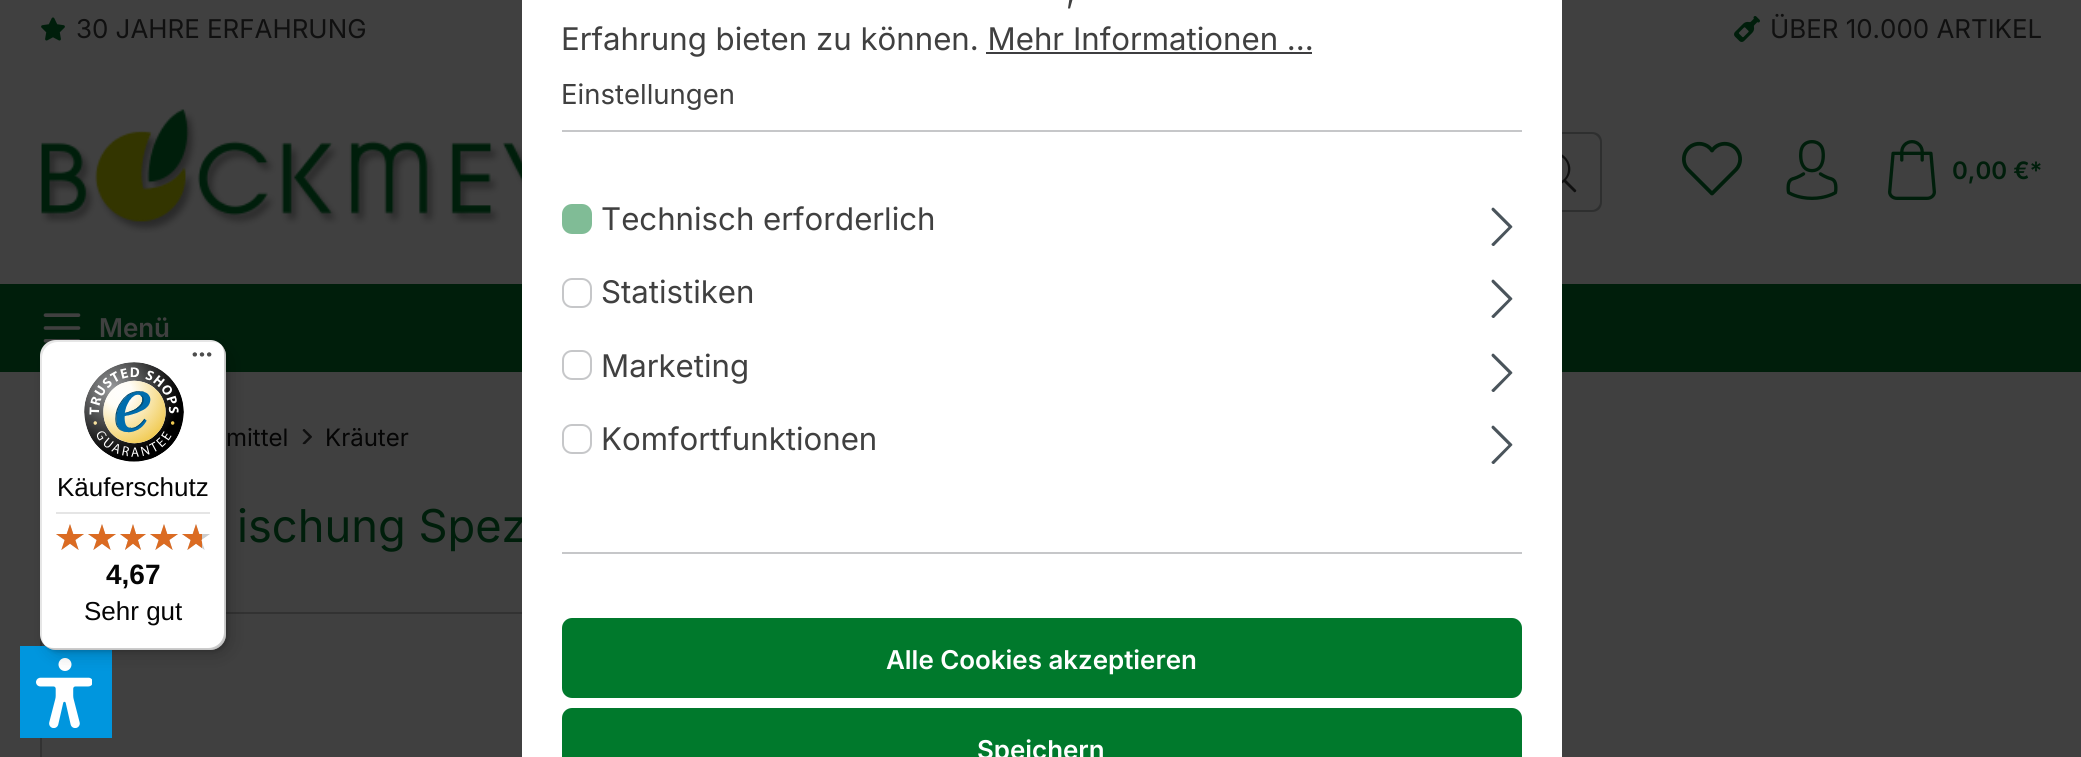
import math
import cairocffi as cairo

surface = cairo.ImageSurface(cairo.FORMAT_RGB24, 2081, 757)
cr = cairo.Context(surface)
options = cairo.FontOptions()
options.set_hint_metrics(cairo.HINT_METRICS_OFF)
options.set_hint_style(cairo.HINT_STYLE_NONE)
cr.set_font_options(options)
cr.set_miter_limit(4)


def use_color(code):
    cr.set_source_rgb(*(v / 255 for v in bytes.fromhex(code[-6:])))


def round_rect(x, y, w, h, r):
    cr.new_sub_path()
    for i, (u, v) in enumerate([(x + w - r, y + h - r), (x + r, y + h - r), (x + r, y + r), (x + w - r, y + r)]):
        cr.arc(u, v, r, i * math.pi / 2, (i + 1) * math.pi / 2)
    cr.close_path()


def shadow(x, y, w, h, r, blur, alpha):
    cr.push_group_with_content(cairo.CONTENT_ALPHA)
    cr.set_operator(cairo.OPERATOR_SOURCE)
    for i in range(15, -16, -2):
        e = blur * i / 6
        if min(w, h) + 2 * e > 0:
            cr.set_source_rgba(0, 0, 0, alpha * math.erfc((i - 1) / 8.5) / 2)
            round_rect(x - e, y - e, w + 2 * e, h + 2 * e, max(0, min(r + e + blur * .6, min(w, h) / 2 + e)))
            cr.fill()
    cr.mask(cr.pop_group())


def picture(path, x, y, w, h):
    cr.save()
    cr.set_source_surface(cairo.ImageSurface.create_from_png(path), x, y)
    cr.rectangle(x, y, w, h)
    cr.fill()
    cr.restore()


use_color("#404040")
cr.paint()
use_color("#2e2f2f")
cr.set_fill_rule(cairo.FILL_RULE_EVEN_ODD)
cr.new_path()
cr.move_to(1512, 132)
cr.line_to(1592, 132)
cr.curve_to(1598, 132, 1602, 136, 1602, 142)
cr.line_to(1602, 202)
cr.curve_to(1602, 208, 1598, 212, 1592, 212)
cr.line_to(1512, 212)
cr.close_path()
cr.move_to(1512, 134)
cr.line_to(1592, 134)
cr.curve_to(1596, 134, 1600, 138, 1600, 142)
cr.line_to(1600, 202)
cr.curve_to(1600, 206, 1596, 210, 1592, 210)
cr.line_to(1512, 210)
cr.close_path()
cr.fill()
use_color("#101010")
cr.set_fill_rule(cairo.FILL_RULE_WINDING)
cr.new_path()
cr.move_to(1576, 190)
cr.line_to(1566, 180)
cr.curve_to(1580, 164, 1557, 141, 1541, 157)
cr.curve_to(1525, 173, 1548, 196, 1564, 182)
cr.line_to(1574, 192)
cr.curve_to(1575, 193, 1577, 191, 1576, 190)
cr.close_path()
cr.move_to(1538, 169)
cr.curve_to(1538, 150, 1568, 150, 1568, 169)
cr.curve_to(1568, 188, 1538, 188, 1538, 169)
cr.close_path()
cr.fill()
use_color("#001e0b")
cr.rectangle(0, 284, 2081, 88)
cr.fill()
cr.select_font_face("Inter")
cr.set_font_size(45.25)
cr.move_to(237, 542)
cr.show_text("ischung Spez")
cr.rectangle(41, 613, 1132, 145)
use_color("#323232")
cr.stroke()
use_color("#ffffff")
cr.rectangle(522, 0, 1040, 757)
cr.fill()
use_color("#c6c7c9")
cr.rectangle(562, 130, 960, 2)
cr.fill()
cr.set_font_size(31.2)
use_color("#404040")
cr.move_to(1066, 3)
cr.show_text(",")
cr.move_to(561, 50)
cr.show_text("Erfahrung bieten zu können. Mehr Informationen ...")
use_color("#3e3e40")
cr.rectangle(986, 52, 326, 2)
cr.fill()
cr.set_font_size(27.5)
use_color("#404040")
cr.move_to(561, 104)
cr.show_text("Einstellungen")
use_color("#c6c7c9")
cr.rectangle(562, 552, 960, 2)
cr.fill()
use_color("#80bc96")
round_rect(563, 205, 28, 28, 9)
cr.fill_preserve()
cr.stroke()
cr.set_font_size(31.2)
use_color("#404040")
cr.move_to(601, 230)
cr.show_text("Technisch erforderlich")
use_color("#4a545b")
cr.set_fill_rule(cairo.FILL_RULE_EVEN_ODD)
cr.new_path()
cr.move_to(1508.5, 227)
cr.line_to(1492, 243.5)
cr.curve_to(1491, 244, 1491.5, 245.5, 1493, 246)
cr.line_to(1494, 246)
cr.line_to(1512, 227.5)
cr.line_to(1512.5, 227)
cr.line_to(1512, 226)
cr.line_to(1494, 208)
cr.line_to(1493, 207.5)
cr.curve_to(1491.5, 208, 1491, 209.5, 1492, 210.5)
cr.close_path()
cr.fill()
round_rect(563, 279, 28, 28, 9)
use_color("#c6c7c9")
cr.stroke()
use_color("#404040")
cr.move_to(601, 303)
cr.show_text("Statistiken")
use_color("#4a545b")
cr.new_path()
cr.move_to(1508.5, 299)
cr.line_to(1492, 315.5)
cr.curve_to(1491, 316, 1491.5, 317.5, 1493, 318)
cr.line_to(1494, 318)
cr.line_to(1512, 299.5)
cr.line_to(1512.5, 299)
cr.line_to(1512, 298)
cr.line_to(1494, 280)
cr.line_to(1493, 279.5)
cr.curve_to(1491.5, 280, 1491, 281.5, 1492, 282.5)
cr.close_path()
cr.fill()
round_rect(563, 351, 28, 28, 9)
use_color("#c6c7c9")
cr.stroke()
use_color("#404040")
cr.move_to(601, 377)
cr.show_text("Marketing")
use_color("#4a545b")
cr.new_path()
cr.move_to(1508.5, 373)
cr.line_to(1492, 389.5)
cr.curve_to(1491, 390, 1491.5, 391.5, 1493, 392)
cr.line_to(1494, 392)
cr.line_to(1512, 373.5)
cr.line_to(1512.5, 373)
cr.line_to(1512, 372)
cr.line_to(1494, 354)
cr.line_to(1493, 353.5)
cr.curve_to(1491.5, 354, 1491, 355.5, 1492, 356.5)
cr.close_path()
cr.fill()
round_rect(563, 425, 28, 28, 9)
use_color("#c6c7c9")
cr.stroke()
use_color("#404040")
cr.move_to(601, 450)
cr.show_text("Komfortfunktionen")
use_color("#4a545b")
cr.new_path()
cr.move_to(1508.5, 445)
cr.line_to(1492, 461.5)
cr.curve_to(1491, 462, 1491.5, 463.5, 1493, 464)
cr.line_to(1494, 464)
cr.line_to(1512, 445.5)
cr.line_to(1512.5, 445)
cr.line_to(1512, 444)
cr.line_to(1494, 426)
cr.line_to(1493, 425.5)
cr.curve_to(1491.5, 426, 1491, 427.5, 1492, 428.5)
cr.close_path()
cr.fill()
use_color("#00792c")
round_rect(563, 619, 958, 78, 9)
cr.fill_preserve()
cr.stroke()
cr.select_font_face("Inter SemiBold")
cr.set_font_size(25.9)
use_color("#ffffff")
cr.move_to(886, 669)
cr.show_text("Alle Cookies akzeptieren")
use_color("#00792c")
round_rect(563, 709, 958, 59, 9)
cr.fill_preserve()
cr.stroke()
use_color("#ffffff")
cr.move_to(977, 759)
cr.show_text("Speichern")
picture("img1.png", 41, 17, 24, 24)
cr.select_font_face("Inter")
use_color("#101010")
cr.move_to(76, 38)
cr.show_text("30 JAHRE ERFAHRUNG")
picture("img2.png", 1734, 16, 26, 26)
cr.move_to(1770, 38)
cr.show_text("ÜBER 10.000 ARTIKEL")
picture("img3.png", 41, 109, 481, 124)
picture("img4.png", 1682, 141, 60, 55)
picture("img5.png", 1786, 140, 52, 60)
picture("img6.png", 1888, 140, 48, 60)
cr.select_font_face("Inter SemiBold")
cr.set_font_size(24)
use_color("#001e0b")
cr.move_to(1952, 179)
cr.show_text("0,00 €*")
picture("img7.png", 43, 313, 38, 30)
cr.set_font_size(25.9)
use_color("#404040")
cr.move_to(99, 337)
cr.show_text("Menü")
use_color("#0096de")
cr.rectangle(20, 646, 92, 92)
cr.fill()
picture("img16.png", 36, 658, 56, 70)
use_color("#000000")
shadow(46, 346, 186, 310, 16, 8, 0.15)
shadow(42, 342, 186, 310, 16, 2, 0.15)
use_color("#ffffff")
round_rect(40, 340, 186, 310, 16)
cr.fill()
cr.set_source_rgba(0, 0, 0, 0.1)
cr.set_fill_rule(cairo.FILL_RULE_WINDING)
cr.new_path()
cr.move_to(58, 342)
cr.line_to(212, 342)
cr.curve_to(216, 342, 219, 343, 222, 345)
cr.curve_to(219, 342, 215, 340, 210, 340)
cr.line_to(56, 340)
cr.curve_to(47, 340, 40, 347, 40, 356)
cr.line_to(40, 634)
cr.curve_to(40, 639, 42, 643, 45, 646)
cr.curve_to(43, 643, 42, 640, 42, 636)
cr.line_to(42, 358)
cr.curve_to(42, 349, 49, 342, 58, 342)
cr.close_path()
cr.fill()
cr.set_source_rgba(0, 0, 0, 0.2)
cr.new_path()
cr.move_to(44, 645)
cr.curve_to(47, 648, 51, 650, 56, 650)
cr.line_to(210, 650)
cr.curve_to(219, 650, 226, 643, 226, 634)
cr.line_to(226, 356)
cr.curve_to(226, 351, 224, 347, 221, 344)
cr.curve_to(223, 347, 224, 350, 224, 354)
cr.line_to(224, 632)
cr.curve_to(224, 641, 217, 648, 208, 648)
cr.line_to(54, 648)
cr.curve_to(50, 648, 47, 647, 44, 645)
cr.close_path()
cr.fill()
cr.set_source_rgba(0.196, 0.196, 0.196, 0.2)
cr.new_path()
cr.move_to(45, 645)
cr.curve_to(48, 648, 52, 650, 56, 650)
cr.line_to(210, 650)
cr.curve_to(219, 650, 226, 643, 226, 634)
cr.line_to(226, 356)
cr.curve_to(226, 352, 224, 348, 221, 345)
cr.curve_to(224, 348, 225, 351, 225, 355)
cr.line_to(225, 633)
cr.curve_to(225, 642, 218, 649, 209, 649)
cr.line_to(55, 649)
cr.curve_to(51, 649, 48, 648, 45, 645)
cr.close_path()
cr.fill()
cr.set_source_rgba(1, 1, 1, 0.3)
cr.new_path()
cr.move_to(45, 645)
cr.curve_to(48, 648, 52, 650, 56, 650)
cr.line_to(210, 650)
cr.curve_to(219, 650, 226, 643, 226, 634)
cr.line_to(226, 356)
cr.curve_to(226, 352, 224, 348, 221, 345)
cr.curve_to(224, 348, 225, 351, 225, 355)
cr.line_to(225, 633)
cr.curve_to(225, 642, 218, 649, 209, 649)
cr.line_to(55, 649)
cr.curve_to(51, 649, 48, 648, 45, 645)
cr.close_path()
cr.fill()
picture("img8.png", 192, 352, 20, 5)
picture("img9.png", 84, 362, 100, 100)
cr.select_font_face("Liberation Sans")
cr.set_font_size(26)
use_color("#050505")
cr.move_to(57, 496)
cr.show_text("Käuferschutz")
use_color("#e5e5e5")
cr.rectangle(56, 512, 154, 2)
cr.fill()
picture("img10.png", 56, 524, 28, 26)
picture("img10.png", 88, 524, 28, 26)
picture("img11.png", 120, 524, 26, 26)
picture("img10.png", 150, 524, 28, 26)
picture("img10.png", 182, 524, 28, 26)
picture("img12.png", 56, 524, 28, 26)
picture("img12.png", 88, 524, 28, 26)
picture("img13.png", 120, 524, 26, 26)
picture("img12.png", 150, 524, 28, 26)
picture("img14.png", 182, 524, 20, 26)
cr.select_font_face("Liberation Sans", cairo.FONT_SLANT_NORMAL, cairo.FONT_WEIGHT_BOLD)
cr.set_font_size(28)
use_color("#050505")
cr.move_to(106, 584)
cr.show_text("4,67")
cr.select_font_face("Liberation Sans")
cr.set_font_size(26)
cr.move_to(84, 620)
cr.show_text("Sehr gut")
cr.select_font_face("Inter")
cr.set_font_size(24)
cr.move_to(226, 446)
cr.show_text("mittel")
picture("img15.png", 302, 429, 10, 16)
cr.move_to(325, 446)
cr.show_text("Kräuter")
surface.write_to_png("result.png")
